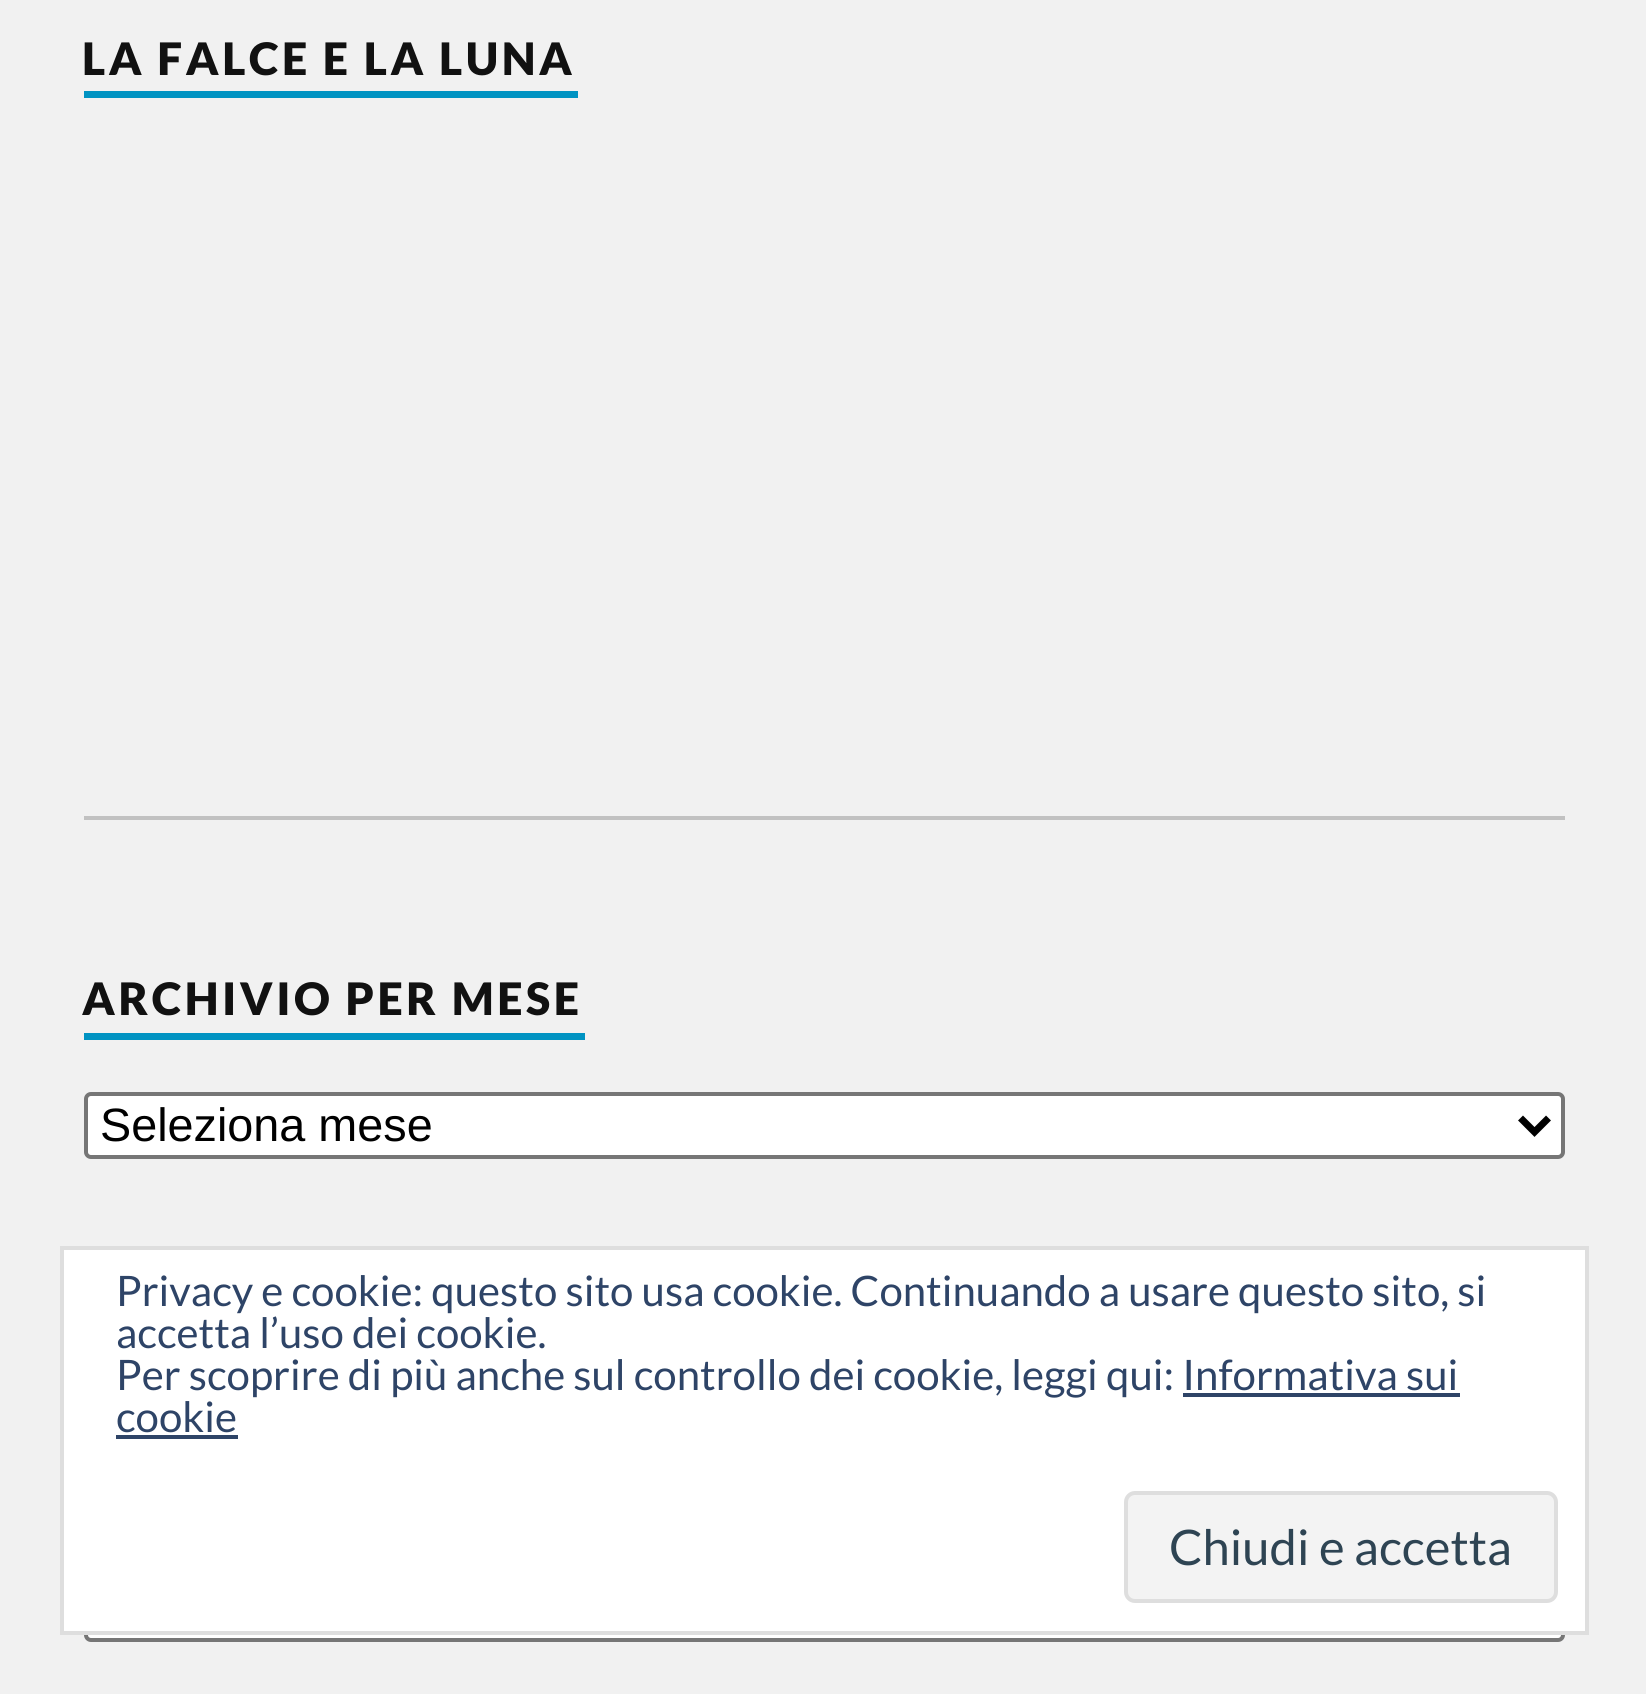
import math
import cairocffi as cairo

surface = cairo.ImageSurface(cairo.FORMAT_RGB24, 1646, 1694)
cr = cairo.Context(surface)
options = cairo.FontOptions()
options.set_hint_metrics(cairo.HINT_METRICS_OFF)
options.set_hint_style(cairo.HINT_STYLE_NONE)
cr.set_font_options(options)
cr.set_miter_limit(4)


def use_color(code):
    cr.set_source_rgb(*(v / 255 for v in bytes.fromhex(code[-6:])))


def spaced_text(x, y, s, letter, word):
    cr.move_to(x, y)
    for ch in s:
        cr.show_text(ch)
        cr.rel_move_to(letter + word * (ch == ' '), 0)


def round_rect(x, y, w, h, r):
    cr.new_sub_path()
    for i, (u, v) in enumerate([(x + w - r, y + h - r), (x + r, y + h - r), (x + r, y + r), (x + w - r, y + r)]):
        cr.arc(u, v, r, i * math.pi / 2, (i + 1) * math.pi / 2)
    cr.close_path()


use_color("#f1f1f1")
cr.paint()
use_color("#0093c2")
cr.rectangle(84, 91, 494, 7)
cr.fill()
cr.select_font_face("Lato Black")
cr.set_font_size(44.75)
use_color("#111111")
spaced_text(82, 75, "LA FALCE E LA LUNA", 3.5, 0)
use_color("#c1c1c1")
cr.rectangle(84, 816, 1481, 4)
cr.fill()
use_color("#0093c2")
cr.rectangle(84, 1033, 501, 7)
cr.fill()
use_color("#111111")
spaced_text(82, 1015, "ARCHIVIO PER MESE", 3.5, 0)
use_color("#ffffff")
round_rect(86, 1094, 1477, 63, 5)
cr.fill_preserve()
use_color("#767676")
cr.set_line_width(4)
cr.stroke()
cr.new_path()
cr.move_to(1520.5, 1118)
cr.line_to(1534.5, 1132)
cr.line_to(1548.5, 1118)
use_color("#000000")
cr.set_line_width(7)
cr.stroke()
cr.select_font_face("Liberation Sans")
cr.set_font_size(46.75)
cr.move_to(100, 1141)
cr.show_text("Seleziona mese")
use_color("#ffffff")
round_rect(86, 1577, 1477, 63, 5)
cr.fill_preserve()
use_color("#767676")
cr.set_line_width(4)
cr.stroke()
use_color("#ffffff")
cr.rectangle(62, 1248, 1525, 385)
cr.fill_preserve()
use_color("#dedede")
cr.stroke()
cr.select_font_face("Lato")
cr.set_font_size(42)
use_color("#2e4467")
cr.move_to(116, 1306)
cr.show_text("Privacy e cookie: questo sito usa cookie. Continuando a usare questo sito, si")
cr.move_to(116, 1348)
cr.show_text("accetta l’uso dei cookie.")
cr.move_to(116, 1390)
cr.show_text("Per scoprire di più anche sul controllo dei cookie, leggi qui: Informativa sui")
cr.move_to(116, 1432)
cr.show_text("cookie")
cr.rectangle(1183, 1393, 277, 4)
cr.fill()
cr.rectangle(116, 1435, 122, 4)
cr.fill()
use_color("#f3f3f3")
round_rect(1126, 1493, 430, 108, 9)
cr.fill_preserve()
use_color("#dedede")
cr.stroke()
cr.set_font_size(49)
use_color("#2e4453")
cr.move_to(1169, 1565)
cr.show_text("Chiudi e accetta")
surface.write_to_png("result.png")
